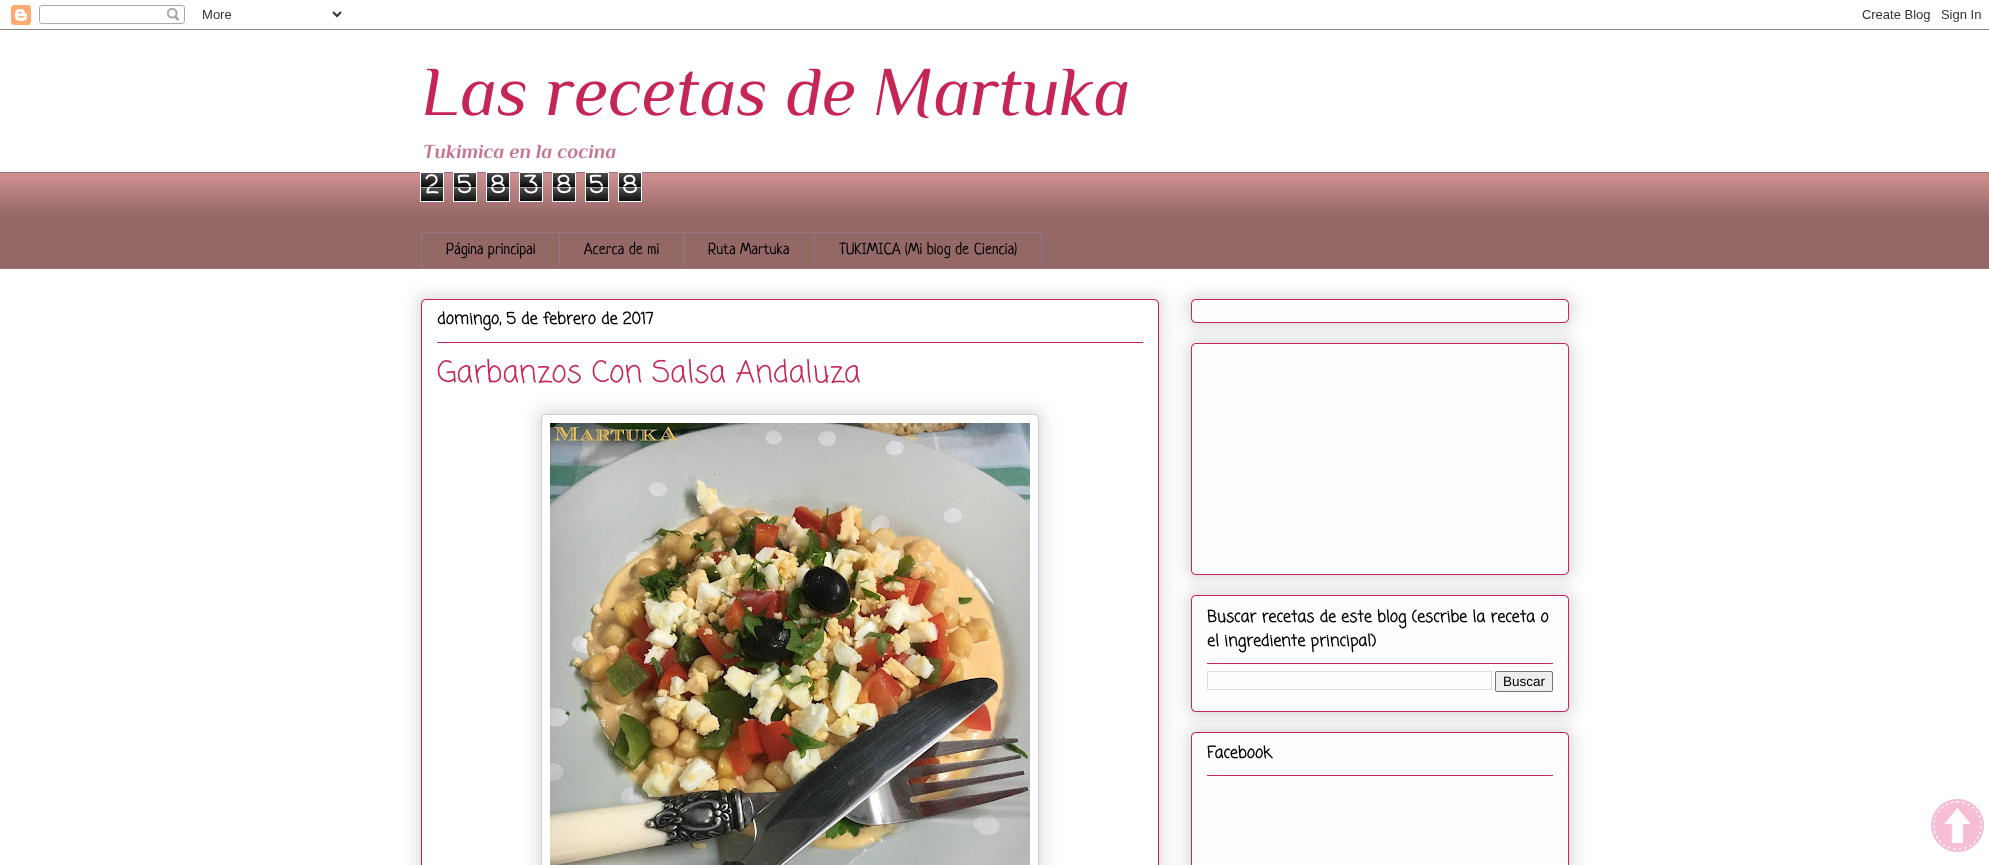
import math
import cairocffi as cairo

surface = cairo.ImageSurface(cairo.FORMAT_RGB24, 1989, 865)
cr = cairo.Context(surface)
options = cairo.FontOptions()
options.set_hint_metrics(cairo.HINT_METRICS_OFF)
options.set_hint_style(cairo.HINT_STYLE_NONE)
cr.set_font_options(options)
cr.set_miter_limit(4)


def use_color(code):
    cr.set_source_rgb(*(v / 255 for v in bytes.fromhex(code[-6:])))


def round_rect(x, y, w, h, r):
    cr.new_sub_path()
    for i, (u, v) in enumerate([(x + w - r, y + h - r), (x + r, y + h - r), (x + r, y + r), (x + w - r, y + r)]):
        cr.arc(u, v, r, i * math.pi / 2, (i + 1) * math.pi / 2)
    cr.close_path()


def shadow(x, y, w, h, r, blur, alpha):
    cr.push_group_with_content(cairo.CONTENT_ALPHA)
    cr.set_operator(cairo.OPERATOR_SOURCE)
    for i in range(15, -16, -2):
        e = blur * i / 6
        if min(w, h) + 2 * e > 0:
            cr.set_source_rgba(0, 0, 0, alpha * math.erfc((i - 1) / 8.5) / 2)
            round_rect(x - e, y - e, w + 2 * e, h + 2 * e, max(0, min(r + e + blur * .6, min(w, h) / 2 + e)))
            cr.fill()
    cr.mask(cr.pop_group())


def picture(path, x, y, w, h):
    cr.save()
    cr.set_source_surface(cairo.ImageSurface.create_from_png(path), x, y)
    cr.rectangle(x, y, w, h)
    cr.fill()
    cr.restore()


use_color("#ffffff")
cr.paint()
picture("img1.png", 0, 5, 1989, 25)
cr.select_font_face("Philosopher", cairo.FONT_SLANT_ITALIC)
cr.set_font_size(70)
use_color("#c52656")
cr.move_to(421, 115)
cr.show_text("Las recetas de Martuka")
cr.select_font_face("Philosopher", cairo.FONT_SLANT_ITALIC, cairo.FONT_WEIGHT_BOLD)
cr.set_font_size(20)
use_color("#c5758d")
cr.move_to(423, 158)
cr.show_text("Tukimica en la cocina")
use_color("#cd8f8f")
cr.rectangle(0, 173, 1989, 95)
cr.fill()
picture("img2.png", 0, 178, 1989, 90)
use_color("#987383")
cr.rectangle(0, 172, 1989, 1)
cr.fill()
picture("img3.png", 421, 173, 22, 28)
cr.rectangle(420.5, 172.5, 23, 29)
use_color("#ffffff")
cr.set_line_width(1)
cr.stroke()
cr.select_font_face("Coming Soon", cairo.FONT_SLANT_NORMAL, cairo.FONT_WEIGHT_BOLD)
cr.set_font_size(24)
cr.move_to(425, 193)
cr.show_text("2")
cr.set_source_rgba(0, 0, 0, 0.65)
cr.rectangle(421, 186, 22, 1)
cr.fill()
cr.set_source_rgba(1, 1, 1, 0.65)
cr.rectangle(421, 187, 22, 1)
cr.fill()
picture("img3.png", 454, 173, 22, 28)
cr.rectangle(453.5, 172.5, 23, 29)
use_color("#ffffff")
cr.stroke()
cr.move_to(457, 193)
cr.show_text("5")
cr.set_source_rgba(0, 0, 0, 0.65)
cr.rectangle(454, 186, 22, 1)
cr.fill()
cr.set_source_rgba(1, 1, 1, 0.65)
cr.rectangle(454, 187, 22, 1)
cr.fill()
picture("img3.png", 487, 173, 22, 28)
cr.rectangle(486.5, 172.5, 23, 29)
use_color("#ffffff")
cr.stroke()
cr.move_to(490, 193)
cr.show_text("8")
cr.set_source_rgba(0, 0, 0, 0.65)
cr.rectangle(487, 186, 22, 1)
cr.fill()
cr.set_source_rgba(1, 1, 1, 0.65)
cr.rectangle(487, 187, 22, 1)
cr.fill()
picture("img3.png", 520, 173, 22, 28)
cr.rectangle(519.5, 172.5, 23, 29)
use_color("#ffffff")
cr.stroke()
cr.move_to(524, 193)
cr.show_text("3")
cr.set_source_rgba(0, 0, 0, 0.65)
cr.rectangle(520, 186, 22, 1)
cr.fill()
cr.set_source_rgba(1, 1, 1, 0.65)
cr.rectangle(520, 187, 22, 1)
cr.fill()
picture("img3.png", 553, 173, 22, 28)
cr.rectangle(552.5, 172.5, 23, 29)
use_color("#ffffff")
cr.stroke()
cr.move_to(556, 193)
cr.show_text("8")
cr.set_source_rgba(0, 0, 0, 0.65)
cr.rectangle(553, 186, 22, 1)
cr.fill()
cr.set_source_rgba(1, 1, 1, 0.65)
cr.rectangle(553, 187, 22, 1)
cr.fill()
picture("img3.png", 586, 173, 22, 28)
cr.rectangle(585.5, 172.5, 23, 29)
use_color("#ffffff")
cr.stroke()
cr.move_to(589, 193)
cr.show_text("5")
cr.set_source_rgba(0, 0, 0, 0.65)
cr.rectangle(586, 186, 22, 1)
cr.fill()
cr.set_source_rgba(1, 1, 1, 0.65)
cr.rectangle(586, 187, 22, 1)
cr.fill()
picture("img3.png", 619, 173, 22, 28)
cr.rectangle(618.5, 172.5, 23, 29)
use_color("#ffffff")
cr.stroke()
cr.move_to(622, 193)
cr.show_text("8")
cr.set_source_rgba(0, 0, 0, 0.65)
cr.rectangle(619, 186, 22, 1)
cr.fill()
cr.set_source_rgba(1, 1, 1, 0.65)
cr.rectangle(619, 187, 22, 1)
cr.fill()
use_color("#987383")
cr.rectangle(421, 232, 393, 1)
cr.fill()
cr.rectangle(421, 232, 1, 37)
cr.fill()
cr.select_font_face("Neucha")
cr.set_font_size(16)
use_color("#000000")
cr.move_to(446, 254)
cr.show_text("Página principal")
use_color("#987383")
cr.rectangle(559, 232, 1, 37)
cr.fill()
use_color("#000000")
cr.move_to(584, 254)
cr.show_text("Acerca de mi")
use_color("#987383")
cr.rectangle(683, 232, 1, 37)
cr.fill()
use_color("#000000")
cr.move_to(708, 254)
cr.show_text("Ruta Martuka")
cr.rectangle(814.5, 232.5, 227, 36)
use_color("#987383")
cr.stroke()
use_color("#000000")
cr.move_to(839, 254)
cr.show_text("TUKIMICA (Mi blog de Ciencia)")
use_color("#987383")
cr.rectangle(0, 268, 1989, 1)
cr.fill()
use_color("#000000")
shadow(421, 299, 738, 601, 5, 10, 0.2)
use_color("#ffffff")
round_rect(421.5, 299.5, 737, 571, 4.5)
cr.fill_preserve()
use_color("#c52656")
cr.stroke()
cr.select_font_face("Coming Soon", cairo.FONT_SLANT_NORMAL, cairo.FONT_WEIGHT_BOLD)
use_color("#000000")
cr.move_to(437, 324)
cr.show_text("domingo, 5 de febrero de 2017")
use_color("#c52656")
cr.rectangle(437, 342, 706, 1)
cr.fill()
cr.select_font_face("Coming Soon")
cr.set_font_size(30)
cr.move_to(437, 382)
cr.show_text("Garbanzos Con Salsa Andaluza")
use_color("#000000")
shadow(541, 414, 498, 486, 5, 10, 0.2)
use_color("#ffffff")
round_rect(541.5, 414.5, 497, 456, 4.5)
cr.fill_preserve()
use_color("#cfcfcf")
cr.stroke()
picture("img4.png", 550, 423, 480, 442)
use_color("#000000")
shadow(1191, 299, 378, 24, 5, 10, 0.2)
use_color("#fefdfe")
round_rect(1191.5, 299.5, 377, 23, 4.5)
cr.fill_preserve()
use_color("#c52656")
cr.stroke()
use_color("#000000")
shadow(1191, 343, 378, 232, 5, 10, 0.2)
use_color("#fefdfe")
round_rect(1191.5, 343.5, 377, 231, 4.5)
cr.fill_preserve()
use_color("#c52656")
cr.stroke()
use_color("#000000")
shadow(1191, 595, 378, 117, 5, 10, 0.2)
use_color("#fefdfe")
round_rect(1191.5, 595.5, 377, 116, 4.5)
cr.fill_preserve()
use_color("#c52656")
cr.stroke()
cr.select_font_face("Coming Soon", cairo.FONT_SLANT_NORMAL, cairo.FONT_WEIGHT_BOLD)
cr.set_font_size(16)
use_color("#000000")
cr.move_to(1207, 622)
cr.show_text("Buscar recetas de este blog (escribe la receta o")
cr.move_to(1207, 646)
cr.show_text("el ingrediente principal)")
use_color("#c52656")
cr.rectangle(1207, 663, 346, 1)
cr.fill()
cr.rectangle(1207.5, 671.5, 284, 18)
use_color("#dddddd")
cr.stroke()
use_color("#efefef")
round_rect(1495.5, 671.5, 57, 20, 1.5)
cr.fill_preserve()
use_color("#767676")
cr.stroke()
cr.select_font_face("Liberation Sans")
cr.set_font_size(13.5)
use_color("#000000")
cr.move_to(1503, 686)
cr.show_text("Buscar")
use_color("#000000")
shadow(1191, 732, 378, 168, 5, 10, 0.2)
use_color("#fefdfe")
round_rect(1191.5, 732.5, 377, 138, 4.5)
cr.fill_preserve()
use_color("#c52656")
cr.stroke()
cr.select_font_face("Coming Soon", cairo.FONT_SLANT_NORMAL, cairo.FONT_WEIGHT_BOLD)
cr.set_font_size(16)
use_color("#000000")
cr.move_to(1207, 758)
cr.show_text("Facebook")
use_color("#c52656")
cr.rectangle(1207, 775, 346, 1)
cr.fill()
picture("img5.png", 1931, 799, 53, 53)
surface.write_to_png("result.png")
